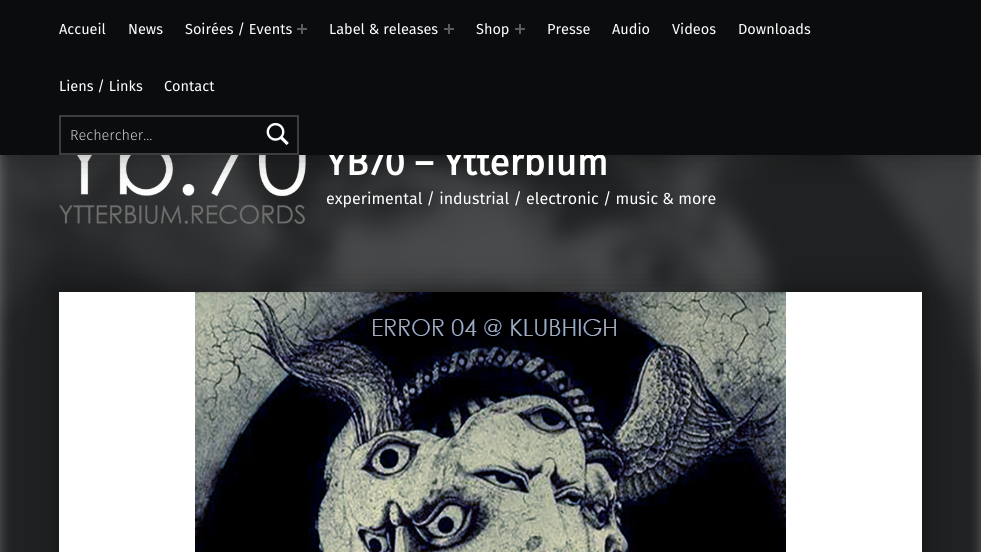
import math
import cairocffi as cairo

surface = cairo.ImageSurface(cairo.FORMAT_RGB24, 981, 552)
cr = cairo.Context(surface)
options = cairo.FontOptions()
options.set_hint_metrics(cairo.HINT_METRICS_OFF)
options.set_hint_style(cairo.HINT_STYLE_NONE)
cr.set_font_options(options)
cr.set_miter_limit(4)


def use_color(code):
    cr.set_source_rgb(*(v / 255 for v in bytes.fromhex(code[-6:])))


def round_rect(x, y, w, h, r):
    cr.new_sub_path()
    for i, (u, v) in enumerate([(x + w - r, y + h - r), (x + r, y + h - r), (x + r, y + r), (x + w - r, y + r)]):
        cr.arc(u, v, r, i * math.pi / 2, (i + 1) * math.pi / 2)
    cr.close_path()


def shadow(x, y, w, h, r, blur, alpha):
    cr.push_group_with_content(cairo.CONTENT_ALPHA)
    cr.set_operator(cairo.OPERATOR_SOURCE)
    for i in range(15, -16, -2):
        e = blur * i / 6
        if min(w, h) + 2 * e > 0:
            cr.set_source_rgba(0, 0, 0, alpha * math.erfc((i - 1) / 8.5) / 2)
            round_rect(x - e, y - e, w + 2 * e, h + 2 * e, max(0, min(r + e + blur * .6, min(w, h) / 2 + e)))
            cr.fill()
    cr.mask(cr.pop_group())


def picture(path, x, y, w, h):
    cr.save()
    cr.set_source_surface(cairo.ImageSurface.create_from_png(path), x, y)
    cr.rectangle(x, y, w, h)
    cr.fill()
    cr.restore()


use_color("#ffffff")
cr.paint()
picture("img3.png", 0, 155, 981, 397)
picture("img2.png", 59, 155, 247, 69)
use_color("#000000")
shadow(0, 0, 981, 155, 0, 16, 0.4)
cr.select_font_face("Fira Sans", cairo.FONT_SLANT_NORMAL, cairo.FONT_WEIGHT_BOLD)
cr.set_font_size(36.5)
use_color("#ffffff")
cr.move_to(326, 175)
cr.show_text("YB70 – Ytterbium")
use_color("#0a0c0e")
cr.rectangle(0, 0, 981, 155)
cr.fill()
cr.select_font_face("Fira Sans")
cr.set_font_size(14.5)
use_color("#ffffff")
cr.move_to(59, 34)
cr.show_text("Accueil")
cr.move_to(128, 34)
cr.show_text("News")
cr.move_to(185, 34)
cr.show_text("Soirées / Events")
use_color("#5b5c5e")
cr.rectangle(297, 28, 10, 2)
cr.fill()
cr.rectangle(301, 24, 2, 10)
cr.fill()
use_color("#ffffff")
cr.move_to(329, 34)
cr.show_text("Label & releases")
use_color("#5b5c5e")
cr.rectangle(444, 28, 10, 2)
cr.fill()
cr.rectangle(448, 24, 2, 10)
cr.fill()
use_color("#ffffff")
cr.move_to(476, 34)
cr.show_text("Shop")
use_color("#5b5c5e")
cr.rectangle(515, 28, 10, 2)
cr.fill()
cr.rectangle(519, 24, 2, 10)
cr.fill()
use_color("#ffffff")
cr.move_to(547, 34)
cr.show_text("Presse")
cr.move_to(612, 34)
cr.show_text("Audio")
cr.move_to(672, 34)
cr.show_text("Videos")
cr.move_to(738, 34)
cr.show_text("Downloads")
cr.move_to(59, 91)
cr.show_text("Liens / Links")
cr.move_to(164, 91)
cr.show_text("Contact")
cr.rectangle(60, 116, 238, 38)
use_color("#3b3d3e")
cr.stroke()
cr.select_font_face("Fira Sans Light")
use_color("#cececf")
cr.move_to(70, 140)
cr.show_text("Rechercher…")
picture("img1.png", 266, 122, 23, 23)
cr.select_font_face("Fira Sans")
cr.set_font_size(16)
use_color("#ffffff")
cr.move_to(326, 204)
cr.show_text("experimental / industrial / electronic / music & more")
use_color("#000000")
shadow(59, 292, 863, 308, 0, 16, 0.4)
use_color("#ffffff")
cr.rectangle(59, 292, 863, 260)
cr.fill()
picture("img4.png", 195, 292, 591, 260)
surface.write_to_png("result.png")
